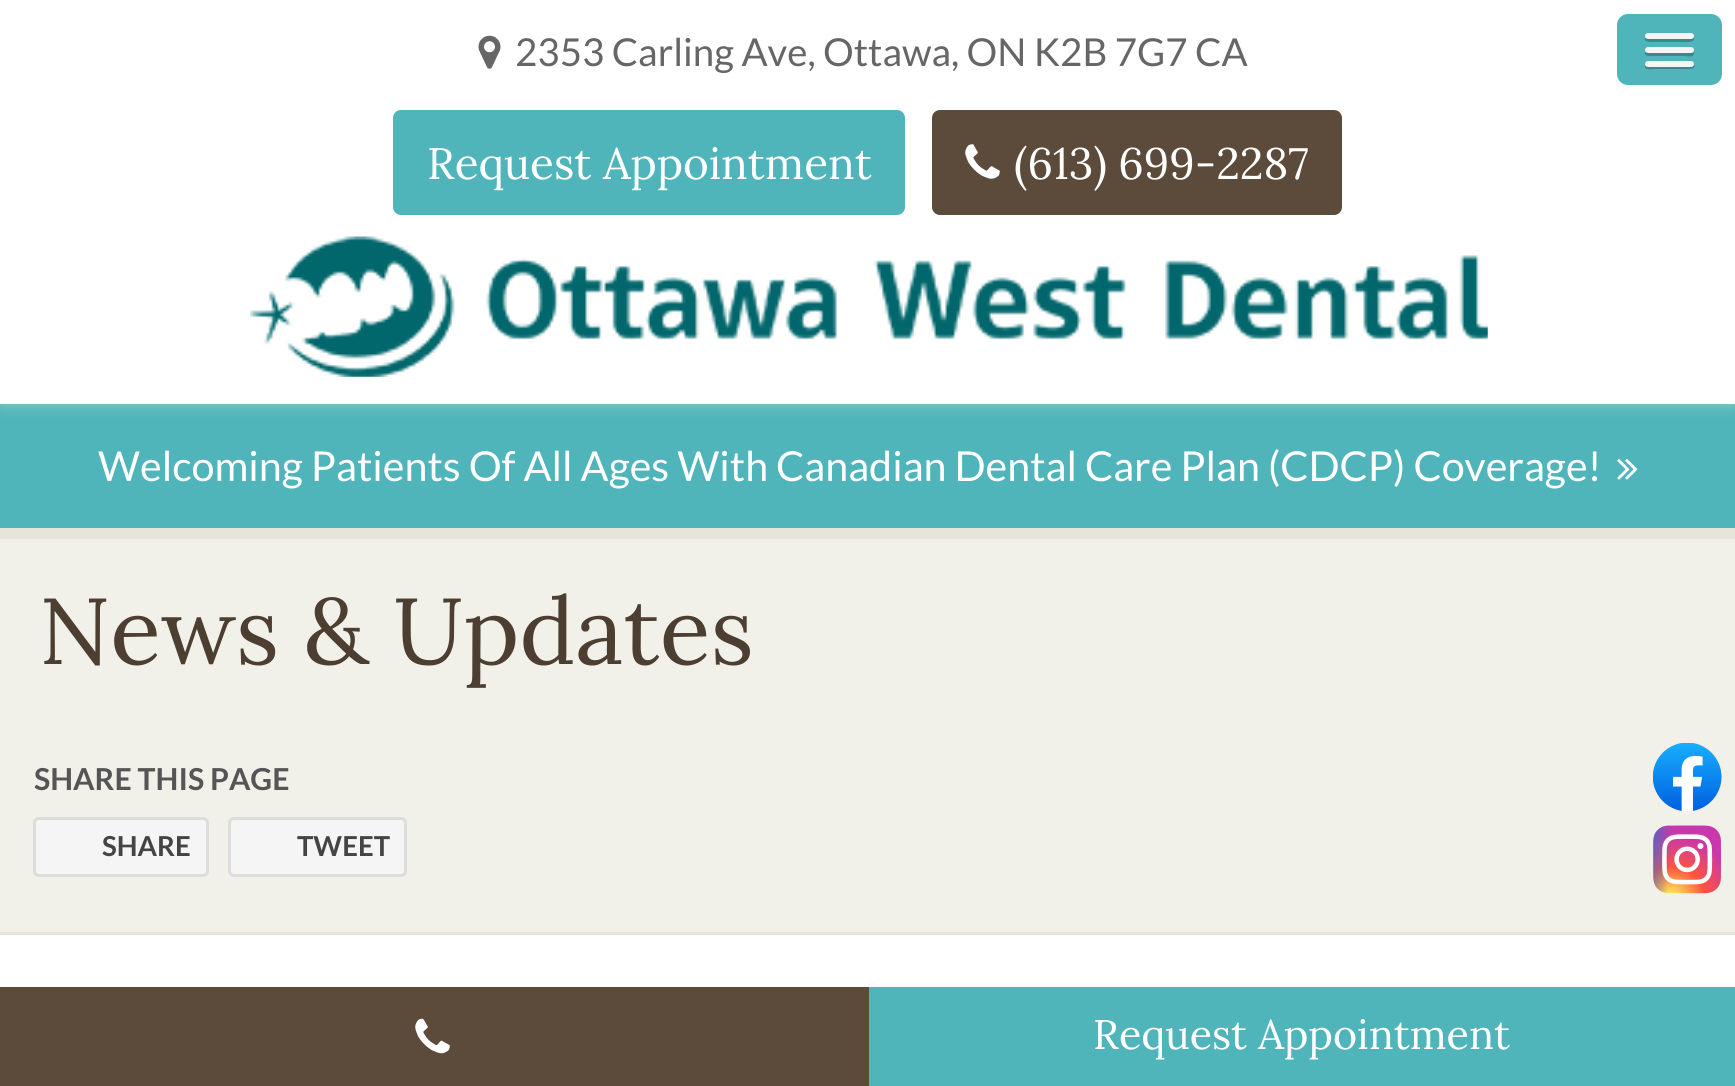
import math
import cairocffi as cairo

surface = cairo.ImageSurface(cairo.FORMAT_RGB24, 1735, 1086)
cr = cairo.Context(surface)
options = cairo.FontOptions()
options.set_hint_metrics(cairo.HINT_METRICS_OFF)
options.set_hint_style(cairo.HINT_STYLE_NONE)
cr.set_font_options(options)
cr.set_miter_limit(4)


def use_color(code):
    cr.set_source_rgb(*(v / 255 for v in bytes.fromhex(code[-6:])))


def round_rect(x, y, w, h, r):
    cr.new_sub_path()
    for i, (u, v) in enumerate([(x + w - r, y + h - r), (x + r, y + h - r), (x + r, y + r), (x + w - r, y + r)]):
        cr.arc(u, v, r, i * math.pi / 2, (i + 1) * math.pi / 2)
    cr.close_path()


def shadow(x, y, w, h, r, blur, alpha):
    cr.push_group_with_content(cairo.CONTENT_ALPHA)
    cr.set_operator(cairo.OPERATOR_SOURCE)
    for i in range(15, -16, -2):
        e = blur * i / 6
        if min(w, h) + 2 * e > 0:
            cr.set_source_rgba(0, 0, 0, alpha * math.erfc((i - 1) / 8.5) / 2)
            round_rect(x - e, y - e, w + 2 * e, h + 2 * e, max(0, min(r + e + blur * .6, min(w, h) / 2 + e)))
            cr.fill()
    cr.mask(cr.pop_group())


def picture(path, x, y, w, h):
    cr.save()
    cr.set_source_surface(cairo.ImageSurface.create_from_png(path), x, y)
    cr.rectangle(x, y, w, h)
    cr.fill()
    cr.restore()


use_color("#ffffff")
cr.paint()
use_color("#4fb5ba")
cr.rectangle(0, 404, 1735, 124)
cr.fill()
use_color("#ede3ca")
shadow(0, 0, 1735, 404, 0, 7, 0.5)
use_color("#ffffff")
cr.rectangle(0, 0, 1735, 404)
cr.fill()
picture("img1.png", 478, 35, 23, 34)
cr.select_font_face("Lato")
cr.set_font_size(38.5)
use_color("#666666")
cr.move_to(515, 66)
cr.show_text("2353 Carling Ave, Ottawa, ON K2B 7G7 CA")
use_color("#f1f0e9")
cr.rectangle(0, 539, 1735, 393)
cr.fill()
picture("img2.png", 1653, 743, 69, 68)
picture("img3.png", 1653, 825, 68, 69)
use_color("#4fb5ba")
round_rect(393, 110, 512, 105, 8)
cr.fill()
cr.select_font_face("Lora")
cr.set_font_size(44)
use_color("#ffffff")
cr.move_to(427, 179)
cr.show_text("Request Appointment")
use_color("#5c4b3a")
round_rect(932, 110, 410, 105, 8)
cr.fill()
picture("img4.png", 965, 144, 35, 35)
use_color("#ffffff")
cr.move_to(1014, 179)
cr.show_text("(613) 699-2287")
picture("img5.png", 250, 236, 1238, 141)
use_color("#4fb5ba")
round_rect(1617, 14, 105, 71, 11)
cr.fill()
use_color("#3b888c")
cr.new_path()
cr.move_to(1645, 38)
cr.curve_to(1643, 43, 1654, 42, 1655, 42)
cr.line_to(1684, 42)
cr.curve_to(1684, 42, 1698, 43, 1693, 37)
cr.line_to(1692, 38)
cr.line_to(1647, 38)
cr.close_path()
cr.fill()
use_color("#f5f5f5")
round_rect(1645, 33, 49, 6, 3)
cr.fill()
use_color("#3b888c")
cr.new_path()
cr.move_to(1645, 52)
cr.curve_to(1642, 57, 1654, 56, 1655, 56)
cr.line_to(1684, 56)
cr.curve_to(1686, 56, 1693, 58, 1694, 54)
cr.line_to(1693, 51)
cr.line_to(1692, 52)
cr.curve_to(1687, 53, 1647, 53, 1645, 52)
cr.close_path()
cr.fill()
use_color("#f5f5f5")
round_rect(1645, 47, 49, 6, 3)
cr.fill()
use_color("#3b888c")
cr.new_path()
cr.move_to(1645, 65)
cr.curve_to(1643, 71, 1654, 69, 1655, 69)
cr.line_to(1684, 69)
cr.curve_to(1685, 69, 1697, 70, 1694, 65)
cr.line_to(1692, 66)
cr.line_to(1647, 66)
cr.close_path()
cr.fill()
use_color("#f5f5f5")
round_rect(1645, 61, 49, 6, 3)
cr.fill()
cr.select_font_face("Lato")
cr.set_font_size(41.25)
use_color("#ffffff")
cr.move_to(98, 481)
cr.show_text("Welcoming Patients Of All Ages With Canadian Dental Care Plan (CDCP) Coverage!")
picture("img6.png", 1617, 459, 21, 21)
use_color("#e7e5d9")
cr.rectangle(0, 528, 1735, 11)
cr.fill()
cr.rectangle(0, 932, 1735, 3)
cr.fill()
cr.select_font_face("Lora")
cr.set_font_size(93.5)
use_color("#4c3e30")
cr.move_to(39, 664)
cr.show_text("News & Updates")
cr.select_font_face("Lato", cairo.FONT_SLANT_NORMAL, cairo.FONT_WEIGHT_BOLD)
cr.set_font_size(30.25)
use_color("#555555")
cr.move_to(34, 790)
cr.show_text("SHARE THIS PAGE")
use_color("#f5f5f5")
round_rect(34.5, 818.5, 173, 57, 4.5)
cr.fill_preserve()
use_color("#dddddd")
cr.set_line_width(3)
cr.stroke()
cr.set_font_size(27.5)
use_color("#444444")
cr.move_to(102, 856)
cr.show_text("SHARE")
use_color("#f5f5f5")
round_rect(229.5, 818.5, 176, 57, 4.5)
cr.fill_preserve()
use_color("#dddddd")
cr.stroke()
use_color("#444444")
cr.move_to(297, 856)
cr.show_text("TWEET")
use_color("#5c4b3a")
cr.rectangle(0, 987, 869, 99)
cr.fill()
picture("img7.png", 415, 1018, 35, 36)
use_color("#4fb5ba")
cr.rectangle(869, 987, 866, 99)
cr.fill()
cr.select_font_face("Lora")
cr.set_font_size(41.25)
use_color("#ffffff")
cr.move_to(1093, 1049)
cr.show_text("Request Appointment")
surface.write_to_png("result.png")
